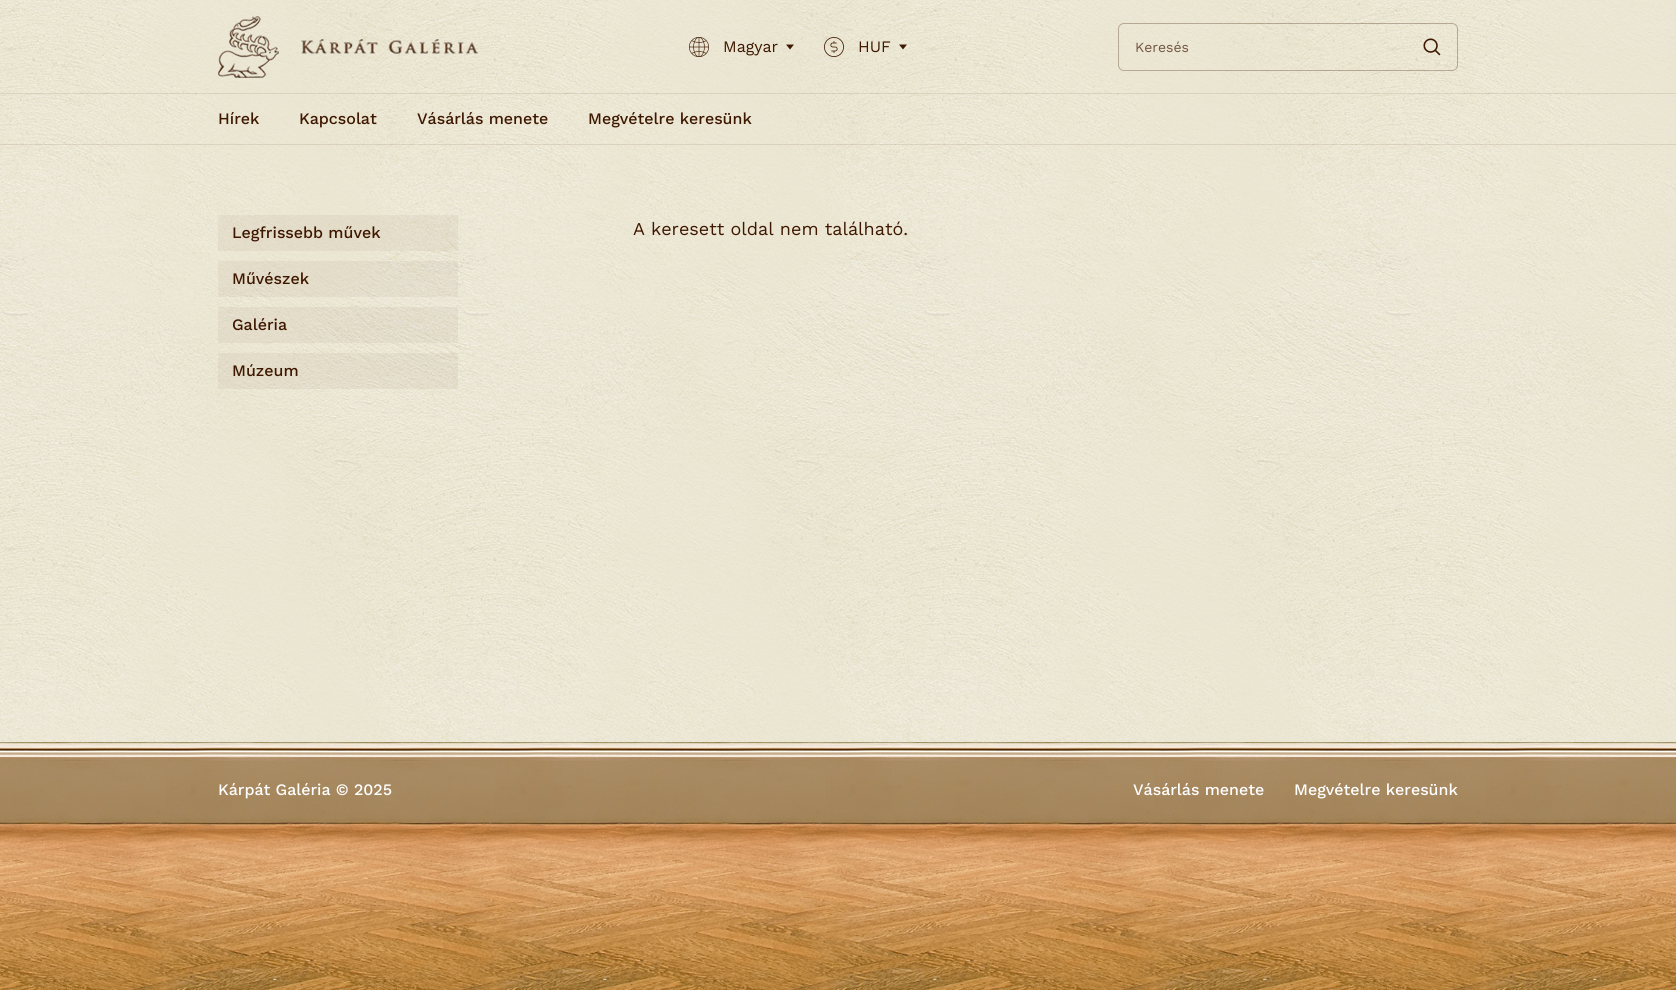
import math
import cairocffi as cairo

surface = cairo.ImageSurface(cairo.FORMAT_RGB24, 1676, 990)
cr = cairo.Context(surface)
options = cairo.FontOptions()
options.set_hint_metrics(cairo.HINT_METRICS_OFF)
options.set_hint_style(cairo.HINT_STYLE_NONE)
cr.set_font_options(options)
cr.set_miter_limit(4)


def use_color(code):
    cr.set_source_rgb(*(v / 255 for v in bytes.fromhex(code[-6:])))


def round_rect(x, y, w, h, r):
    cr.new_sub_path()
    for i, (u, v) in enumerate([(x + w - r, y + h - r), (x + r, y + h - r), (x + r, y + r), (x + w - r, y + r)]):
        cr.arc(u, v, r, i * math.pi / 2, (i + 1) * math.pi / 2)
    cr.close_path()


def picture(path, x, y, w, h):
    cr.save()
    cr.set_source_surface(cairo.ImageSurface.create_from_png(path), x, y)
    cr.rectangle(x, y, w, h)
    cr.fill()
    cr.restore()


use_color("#ffffff")
cr.paint()
picture("img1.png", 0, 0, 1676, 742)
cr.set_source_rgba(0.243, 0.09, 0, 0.1)
cr.rectangle(0, 144, 1676, 1)
cr.fill()
picture("img2.png", 218, 16, 260, 62)
picture("img3.png", 689, 37, 20, 20)
cr.select_font_face("Work Sans")
cr.set_font_size(16)
use_color("#3e1700")
cr.move_to(723, 52)
cr.show_text("Magyar")
cr.new_path()
cr.move_to(794, 44.5)
cr.line_to(790, 49.5)
cr.line_to(786, 44.5)
cr.fill()
picture("img4.png", 824, 37, 20, 20)
cr.move_to(858, 52)
cr.show_text("HUF")
cr.new_path()
cr.move_to(907, 44.5)
cr.line_to(903, 49.5)
cr.line_to(899, 44.5)
cr.fill()
round_rect(1118.5, 23.5, 339, 47, 5.5)
cr.set_source_rgba(0.243, 0.09, 0, 0.3)
cr.set_line_width(1)
cr.stroke()
cr.set_font_size(14)
use_color("#72553f")
cr.move_to(1135, 52)
cr.show_text("Keresés")
picture("img5.png", 1423, 38, 18, 18)
cr.set_source_rgba(0.243, 0.09, 0, 0.1)
cr.rectangle(0, 93, 1676, 1)
cr.fill()
cr.select_font_face("Work Sans Medium")
cr.set_font_size(16)
use_color("#3e1700")
cr.move_to(218, 124)
cr.show_text("Hírek")
cr.move_to(299, 124)
cr.show_text("Kapcsolat")
cr.move_to(417, 124)
cr.show_text("Vásárlás menete")
cr.move_to(588, 124)
cr.show_text("Megvételre keresünk")
cr.set_source_rgba(0.243, 0.09, 0, 0.05)
cr.rectangle(218, 215, 240, 36)
cr.fill()
use_color("#3e1700")
cr.move_to(232, 238)
cr.show_text("Legfrissebb művek")
cr.set_source_rgba(0.243, 0.09, 0, 0.05)
cr.rectangle(218, 261, 240, 36)
cr.fill()
use_color("#3e1700")
cr.move_to(232, 284)
cr.show_text("Művészek")
cr.set_source_rgba(0.243, 0.09, 0, 0.05)
cr.rectangle(218, 307, 240, 36)
cr.fill()
use_color("#3e1700")
cr.move_to(232, 330)
cr.show_text("Galéria")
cr.set_source_rgba(0.243, 0.09, 0, 0.05)
cr.rectangle(218, 353, 240, 36)
cr.fill()
use_color("#3e1700")
cr.move_to(232, 376)
cr.show_text("Múzeum")
cr.select_font_face("Work Sans")
cr.set_font_size(18)
cr.move_to(633, 235)
cr.show_text("A keresett oldal nem található.")
picture("img6.png", 0, 742, 1676, 248)
cr.select_font_face("Work Sans Medium")
cr.set_font_size(16)
use_color("#ffffff")
cr.move_to(218, 795)
cr.show_text("Kárpát Galéria © 2025")
cr.move_to(1133, 795)
cr.show_text("Vásárlás menete")
cr.move_to(1294, 795)
cr.show_text("Megvételre keresünk")
surface.write_to_png("result.png")
